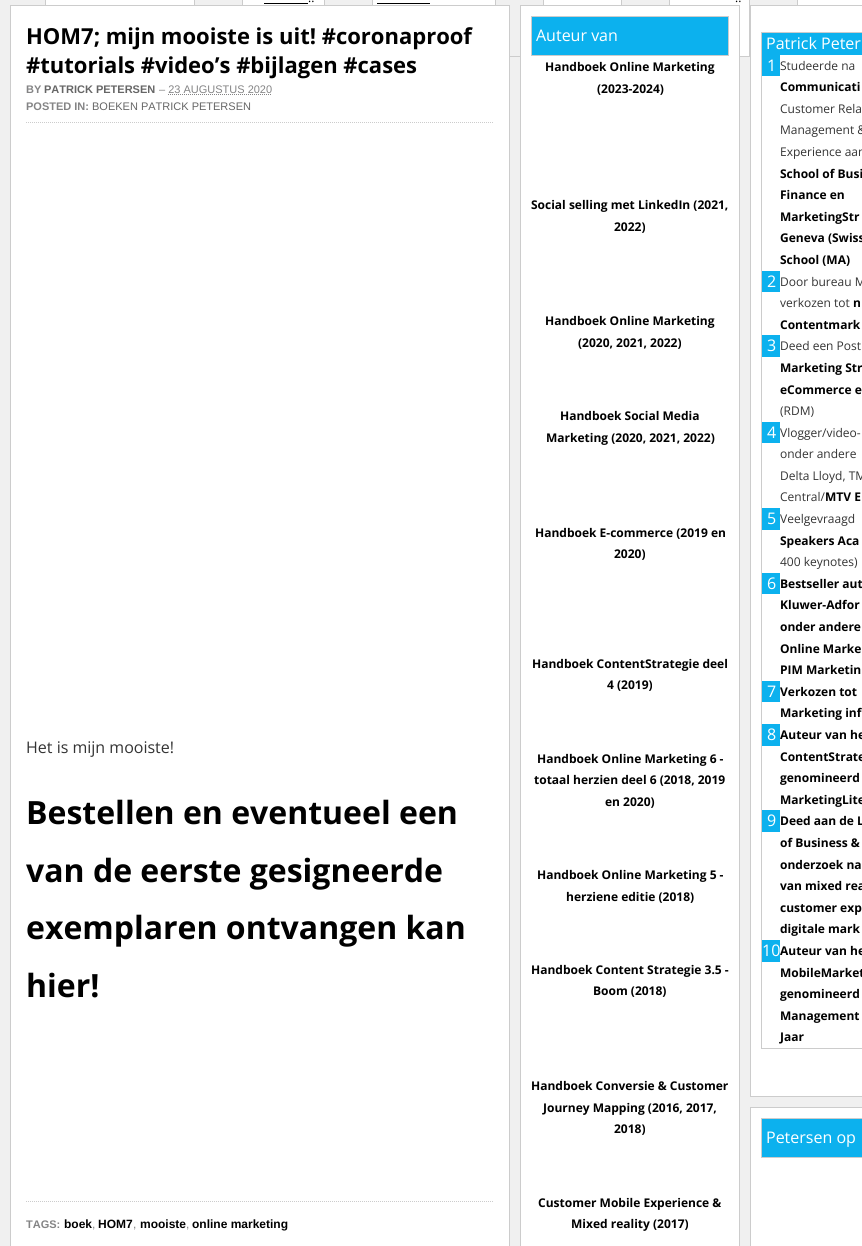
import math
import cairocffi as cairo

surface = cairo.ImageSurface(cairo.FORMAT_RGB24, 862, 1246)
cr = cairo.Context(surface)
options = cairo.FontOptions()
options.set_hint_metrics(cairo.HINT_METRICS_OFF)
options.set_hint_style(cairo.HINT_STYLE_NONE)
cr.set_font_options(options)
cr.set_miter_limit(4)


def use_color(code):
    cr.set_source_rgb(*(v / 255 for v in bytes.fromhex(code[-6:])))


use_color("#f0f0f0")
cr.paint()
use_color("#cccccc")
cr.rectangle(510, 56, 239, 1)
cr.fill()
cr.rectangle(45, 0, 1, 5)
cr.fill()
use_color("#ffffff")
cr.rectangle(46, 0, 148, 5)
cr.fill()
use_color("#cccccc")
cr.rectangle(194, 0, 1, 5)
cr.fill()
use_color("#ffffff")
cr.rectangle(243, 0, 81, 5)
cr.fill()
use_color("#cccccc")
cr.rectangle(242, 0, 1, 5)
cr.fill()
cr.select_font_face("Open Sans")
cr.set_font_size(12)
use_color("#000000")
cr.move_to(308, 2)
cr.show_text("..")
cr.rectangle(264, 3, 44, 1)
cr.fill()
use_color("#cccccc")
cr.rectangle(324, 0, 1, 5)
cr.fill()
use_color("#ffffff")
cr.rectangle(373, 0, 122, 5)
cr.fill()
use_color("#cccccc")
cr.rectangle(372, 0, 1, 5)
cr.fill()
use_color("#000000")
cr.rectangle(377, 3, 53, 1)
cr.fill()
use_color("#cccccc")
cr.rectangle(495, 0, 1, 5)
cr.fill()
use_color("#ffffff")
cr.rectangle(544, 0, 77, 5)
cr.fill()
use_color("#cccccc")
cr.rectangle(543, 0, 1, 5)
cr.fill()
cr.rectangle(621, 0, 1, 5)
cr.fill()
use_color("#ffffff")
cr.rectangle(670, 0, 79, 56)
cr.fill()
use_color("#cccccc")
cr.rectangle(669, 0, 1, 5)
cr.fill()
use_color("#000000")
cr.move_to(735, 2)
cr.show_text("..")
use_color("#cccccc")
cr.rectangle(749, 0, 1, 57)
cr.fill()
use_color("#ffffff")
cr.rectangle(798, 0, 64, 5)
cr.fill()
use_color("#cccccc")
cr.rectangle(797, 0, 1, 5)
cr.fill()
use_color("#ffffff")
cr.rectangle(10.5, 5.5, 499, 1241)
cr.fill_preserve()
use_color("#cccccc")
cr.set_line_width(1)
cr.stroke()
cr.select_font_face("Open Sans", cairo.FONT_SLANT_NORMAL, cairo.FONT_WEIGHT_BOLD)
cr.set_font_size(22)
use_color("#000000")
cr.move_to(26, 44)
cr.show_text("HOM7; mijn mooiste is uit! #coronaproof")
cr.move_to(26, 73)
cr.show_text("#tutorials #video’s #bijlagen #cases")
cr.new_path()
cr.move_to(26, 122.5)
cr.line_to(494, 122.5)
use_color("#cccccc")
cr.set_dash([1, 1])
cr.stroke()
cr.select_font_face("Liberation Sans", cairo.FONT_SLANT_NORMAL, cairo.FONT_WEIGHT_BOLD)
cr.set_font_size(11)
use_color("#848485")
cr.move_to(26, 93)
cr.show_text("BY")
use_color("#666666")
cr.move_to(44, 93)
cr.show_text("PATRICK PETERSEN")
cr.select_font_face("Liberation Sans")
use_color("#848485")
cr.move_to(159, 93)
cr.show_text("– 23 AUGUSTUS 2020")
cr.new_path()
cr.move_to(168, 94.5)
cr.line_to(272, 94.5)
cr.stroke()
cr.select_font_face("Liberation Sans", cairo.FONT_SLANT_NORMAL, cairo.FONT_WEIGHT_BOLD)
cr.move_to(26, 110)
cr.show_text("POSTED IN:")
cr.select_font_face("Liberation Sans")
use_color("#666666")
cr.move_to(92, 110)
cr.show_text("BOEKEN PATRICK PETERSEN")
cr.select_font_face("Open Sans")
cr.set_font_size(16)
use_color("#333333")
cr.move_to(26, 753)
cr.show_text("Het is mijn mooiste!")
cr.select_font_face("Open Sans", cairo.FONT_SLANT_NORMAL, cairo.FONT_WEIGHT_BOLD)
cr.set_font_size(32)
use_color("#000000")
cr.move_to(26, 824)
cr.show_text("Bestellen en eventueel een")
cr.move_to(26, 882)
cr.show_text("van de eerste gesigneerde")
cr.move_to(26, 939)
cr.show_text("exemplaren ontvangen kan")
cr.move_to(26, 997)
cr.show_text("hier!")
cr.new_path()
cr.move_to(26, 1201.5)
cr.line_to(494, 1201.5)
use_color("#cccccc")
cr.stroke()
cr.select_font_face("Liberation Sans", cairo.FONT_SLANT_NORMAL, cairo.FONT_WEIGHT_BOLD)
cr.set_font_size(11)
use_color("#848485")
cr.move_to(26, 1228)
cr.show_text("TAGS:")
cr.set_font_size(12)
use_color("#000000")
cr.move_to(64, 1228)
cr.show_text("boek")
cr.select_font_face("Liberation Sans")
use_color("#848485")
cr.move_to(92, 1228)
cr.show_text(",")
cr.select_font_face("Liberation Sans", cairo.FONT_SLANT_NORMAL, cairo.FONT_WEIGHT_BOLD)
use_color("#000000")
cr.move_to(98, 1228)
cr.show_text("HOM7")
cr.select_font_face("Liberation Sans")
use_color("#848485")
cr.move_to(133, 1228)
cr.show_text(",")
cr.select_font_face("Liberation Sans", cairo.FONT_SLANT_NORMAL, cairo.FONT_WEIGHT_BOLD)
use_color("#000000")
cr.move_to(140, 1228)
cr.show_text("mooiste")
cr.select_font_face("Liberation Sans")
use_color("#848485")
cr.move_to(186, 1228)
cr.show_text(",")
cr.select_font_face("Liberation Sans", cairo.FONT_SLANT_NORMAL, cairo.FONT_WEIGHT_BOLD)
use_color("#000000")
cr.move_to(192, 1228)
cr.show_text("online marketing")
use_color("#ffffff")
cr.rectangle(520.5, 5.5, 219, 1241)
cr.fill_preserve()
use_color("#cccccc")
cr.set_dash([])
cr.stroke()
cr.rectangle(531, 16, 198, 1)
cr.fill()
cr.rectangle(728, 16, 1, 40)
cr.fill()
cr.rectangle(531, 55, 198, 1)
cr.fill()
cr.rectangle(531, 16, 1, 40)
cr.fill()
use_color("#0cb1ee")
cr.rectangle(532, 17, 196, 38)
cr.fill()
cr.select_font_face("Open Sans")
cr.set_font_size(16)
use_color("#ffffff")
cr.move_to(536, 41)
cr.show_text("Auteur van")
cr.select_font_face("Open Sans", cairo.FONT_SLANT_NORMAL, cairo.FONT_WEIGHT_BOLD)
cr.set_font_size(12)
use_color("#000000")
cr.move_to(545, 71)
cr.show_text("Handboek Online Marketing")
cr.move_to(597, 93)
cr.show_text("(2023-2024)")
cr.move_to(531, 209)
cr.show_text("Social selling met LinkedIn (2021,")
cr.move_to(614, 231)
cr.show_text("2022)")
cr.move_to(545, 325)
cr.show_text("Handboek Online Marketing")
cr.move_to(578, 347)
cr.show_text("(2020, 2021, 2022)")
cr.move_to(560, 420)
cr.show_text("Handboek Social Media")
cr.move_to(546, 442)
cr.show_text("Marketing (2020, 2021, 2022)")
cr.move_to(535, 537)
cr.show_text("Handboek E-commerce (2019 en")
cr.move_to(614, 558)
cr.show_text("2020)")
cr.move_to(532, 668)
cr.show_text("Handboek ContentStrategie deel")
cr.move_to(607, 689)
cr.show_text("4 (2019)")
cr.move_to(537, 763)
cr.show_text("Handboek Online Marketing 6 -")
cr.move_to(534, 784)
cr.show_text("totaal herzien deel 6 (2018, 2019")
cr.move_to(605, 806)
cr.show_text("en 2020)")
cr.move_to(537, 879)
cr.show_text("Handboek Online Marketing 5 -")
cr.move_to(566, 901)
cr.show_text("herziene editie (2018)")
cr.move_to(531, 974)
cr.show_text("Handboek Content Strategie 3.5 -")
cr.move_to(593, 995)
cr.show_text("Boom (2018)")
cr.move_to(531, 1090)
cr.show_text("Handboek Conversie & Customer")
cr.move_to(543, 1112)
cr.show_text("Journey Mapping (2016, 2017,")
cr.move_to(614, 1133)
cr.show_text("2018)")
cr.move_to(538, 1207)
cr.show_text("Customer Mobile Experience &")
cr.move_to(571, 1228)
cr.show_text("Mixed reality (2017)")
use_color("#ffffff")
cr.rectangle(750.5, 5.5, 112, 1091)
cr.fill_preserve()
use_color("#cccccc")
cr.stroke()
cr.rectangle(761, 32, 101, 1)
cr.fill()
cr.rectangle(761, 1048, 101, 1)
cr.fill()
cr.rectangle(761, 32, 1, 1017)
cr.fill()
use_color("#0cb1ee")
cr.rectangle(762, 33, 100, 22)
cr.fill()
cr.select_font_face("Open Sans")
cr.set_font_size(16)
use_color("#ffffff")
cr.move_to(766, 49)
cr.show_text("Patrick Peter")
use_color("#0cb1ee")
cr.rectangle(762, 55, 18, 21)
cr.fill()
use_color("#ffffff")
cr.move_to(767, 71)
cr.show_text("1")
cr.set_font_size(12)
use_color("#333333")
cr.move_to(780, 70)
cr.show_text("Studeerde na")
cr.select_font_face("Open Sans", cairo.FONT_SLANT_NORMAL, cairo.FONT_WEIGHT_BOLD)
use_color("#000000")
cr.move_to(780, 91)
cr.show_text("Communicati")
cr.select_font_face("Open Sans")
use_color("#333333")
cr.move_to(780, 113)
cr.show_text("Customer Rela")
cr.move_to(780, 134)
cr.show_text("Management &")
cr.move_to(780, 156)
cr.show_text("Experience aan")
cr.select_font_face("Open Sans", cairo.FONT_SLANT_NORMAL, cairo.FONT_WEIGHT_BOLD)
use_color("#000000")
cr.move_to(780, 178)
cr.show_text("School of Busi")
cr.move_to(780, 199)
cr.show_text("Finance en")
cr.move_to(780, 221)
cr.show_text("MarketingStr")
cr.move_to(780, 242)
cr.show_text("Geneva (Swiss")
cr.move_to(780, 264)
cr.show_text("School (MA)")
use_color("#0cb1ee")
cr.rectangle(762, 271, 18, 21)
cr.fill()
cr.select_font_face("Open Sans")
cr.set_font_size(16)
use_color("#ffffff")
cr.move_to(767, 287)
cr.show_text("2")
cr.set_font_size(12)
use_color("#333333")
cr.move_to(780, 286)
cr.show_text("Door bureau M")
cr.move_to(780, 307)
cr.show_text("verkozen tot")
cr.select_font_face("Open Sans", cairo.FONT_SLANT_NORMAL, cairo.FONT_WEIGHT_BOLD)
use_color("#000000")
cr.move_to(853, 307)
cr.show_text("n")
cr.move_to(780, 329)
cr.show_text("Contentmark")
use_color("#0cb1ee")
cr.rectangle(762, 335, 18, 22)
cr.fill()
cr.select_font_face("Open Sans")
cr.set_font_size(16)
use_color("#ffffff")
cr.move_to(767, 351)
cr.show_text("3")
cr.set_font_size(12)
use_color("#333333")
cr.move_to(780, 350)
cr.show_text("Deed een Post")
cr.select_font_face("Open Sans", cairo.FONT_SLANT_NORMAL, cairo.FONT_WEIGHT_BOLD)
use_color("#000000")
cr.move_to(780, 372)
cr.show_text("Marketing Str")
cr.move_to(780, 394)
cr.show_text("eCommerce e")
cr.select_font_face("Open Sans")
use_color("#333333")
cr.move_to(780, 415)
cr.show_text("(RDM)")
use_color("#0cb1ee")
cr.rectangle(762, 422, 18, 21)
cr.fill()
cr.set_font_size(16)
use_color("#ffffff")
cr.move_to(767, 438)
cr.show_text("4")
cr.set_font_size(12)
use_color("#333333")
cr.move_to(780, 437)
cr.show_text("Vlogger/video-")
cr.move_to(780, 458)
cr.show_text("onder andere")
cr.move_to(780, 480)
cr.show_text("Delta Lloyd, TM")
cr.move_to(780, 501)
cr.show_text("Central/")
cr.select_font_face("Open Sans", cairo.FONT_SLANT_NORMAL, cairo.FONT_WEIGHT_BOLD)
use_color("#000000")
cr.move_to(825, 501)
cr.show_text("MTV E")
use_color("#0cb1ee")
cr.rectangle(762, 508, 18, 22)
cr.fill()
cr.select_font_face("Open Sans")
cr.set_font_size(16)
use_color("#ffffff")
cr.move_to(767, 524)
cr.show_text("5")
cr.set_font_size(12)
use_color("#333333")
cr.move_to(780, 523)
cr.show_text("Veelgevraagd")
cr.select_font_face("Open Sans", cairo.FONT_SLANT_NORMAL, cairo.FONT_WEIGHT_BOLD)
use_color("#000000")
cr.move_to(780, 545)
cr.show_text("Speakers Aca")
cr.select_font_face("Open Sans")
use_color("#333333")
cr.move_to(780, 566)
cr.show_text("400 keynotes)")
use_color("#0cb1ee")
cr.rectangle(762, 573, 18, 21)
cr.fill()
cr.set_font_size(16)
use_color("#ffffff")
cr.move_to(767, 589)
cr.show_text("6")
cr.select_font_face("Open Sans", cairo.FONT_SLANT_NORMAL, cairo.FONT_WEIGHT_BOLD)
cr.set_font_size(12)
use_color("#000000")
cr.move_to(780, 588)
cr.show_text("Bestseller aut")
cr.move_to(780, 609)
cr.show_text("Kluwer-Adfor")
cr.move_to(780, 631)
cr.show_text("onder andere")
cr.move_to(780, 653)
cr.show_text("Online Marke")
cr.move_to(780, 674)
cr.show_text("PIM Marketin")
use_color("#0cb1ee")
cr.rectangle(762, 681, 18, 21)
cr.fill()
cr.select_font_face("Open Sans")
cr.set_font_size(16)
use_color("#ffffff")
cr.move_to(767, 697)
cr.show_text("7")
cr.select_font_face("Open Sans", cairo.FONT_SLANT_NORMAL, cairo.FONT_WEIGHT_BOLD)
cr.set_font_size(12)
use_color("#000000")
cr.move_to(780, 696)
cr.show_text("Verkozen tot")
cr.move_to(780, 717)
cr.show_text("Marketing inf")
use_color("#0cb1ee")
cr.rectangle(762, 724, 18, 22)
cr.fill()
cr.select_font_face("Open Sans")
cr.set_font_size(16)
use_color("#ffffff")
cr.move_to(767, 740)
cr.show_text("8")
cr.select_font_face("Open Sans", cairo.FONT_SLANT_NORMAL, cairo.FONT_WEIGHT_BOLD)
cr.set_font_size(12)
use_color("#000000")
cr.move_to(780, 739)
cr.show_text("Auteur van he")
cr.move_to(780, 761)
cr.show_text("ContentStrate")
cr.move_to(780, 782)
cr.show_text("genomineerd")
cr.move_to(780, 804)
cr.show_text("MarketingLite")
use_color("#0cb1ee")
cr.rectangle(762, 810, 18, 22)
cr.fill()
cr.select_font_face("Open Sans")
cr.set_font_size(16)
use_color("#ffffff")
cr.move_to(767, 826)
cr.show_text("9")
cr.select_font_face("Open Sans", cairo.FONT_SLANT_NORMAL, cairo.FONT_WEIGHT_BOLD)
cr.set_font_size(12)
use_color("#000000")
cr.move_to(780, 825)
cr.show_text("Deed aan de L")
cr.move_to(780, 847)
cr.show_text("of Business &")
cr.move_to(780, 869)
cr.show_text("onderzoek na")
cr.move_to(780, 890)
cr.show_text("van mixed rea")
cr.move_to(780, 912)
cr.show_text("customer exp")
cr.move_to(780, 933)
cr.show_text("digitale mark")
use_color("#0cb1ee")
cr.rectangle(762, 940, 18, 22)
cr.fill()
cr.select_font_face("Open Sans")
cr.set_font_size(16)
use_color("#ffffff")
cr.move_to(762, 956)
cr.show_text("10")
cr.select_font_face("Open Sans", cairo.FONT_SLANT_NORMAL, cairo.FONT_WEIGHT_BOLD)
cr.set_font_size(12)
use_color("#000000")
cr.move_to(780, 955)
cr.show_text("Auteur van he")
cr.move_to(780, 977)
cr.show_text("MobileMarket")
cr.move_to(780, 998)
cr.show_text("genomineerd")
cr.move_to(780, 1020)
cr.show_text("Management")
cr.move_to(780, 1041)
cr.show_text("Jaar")
use_color("#ffffff")
cr.rectangle(750.5, 1107.5, 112, 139)
cr.fill_preserve()
use_color("#cccccc")
cr.stroke()
cr.rectangle(761, 1118, 101, 1)
cr.fill()
cr.rectangle(761, 1157, 101, 1)
cr.fill()
cr.rectangle(761, 1118, 1, 40)
cr.fill()
use_color("#0cb1ee")
cr.rectangle(762, 1119, 100, 38)
cr.fill()
cr.select_font_face("Open Sans")
cr.set_font_size(16)
use_color("#ffffff")
cr.move_to(766, 1143)
cr.show_text("Petersen op")
surface.write_to_png("result.png")
